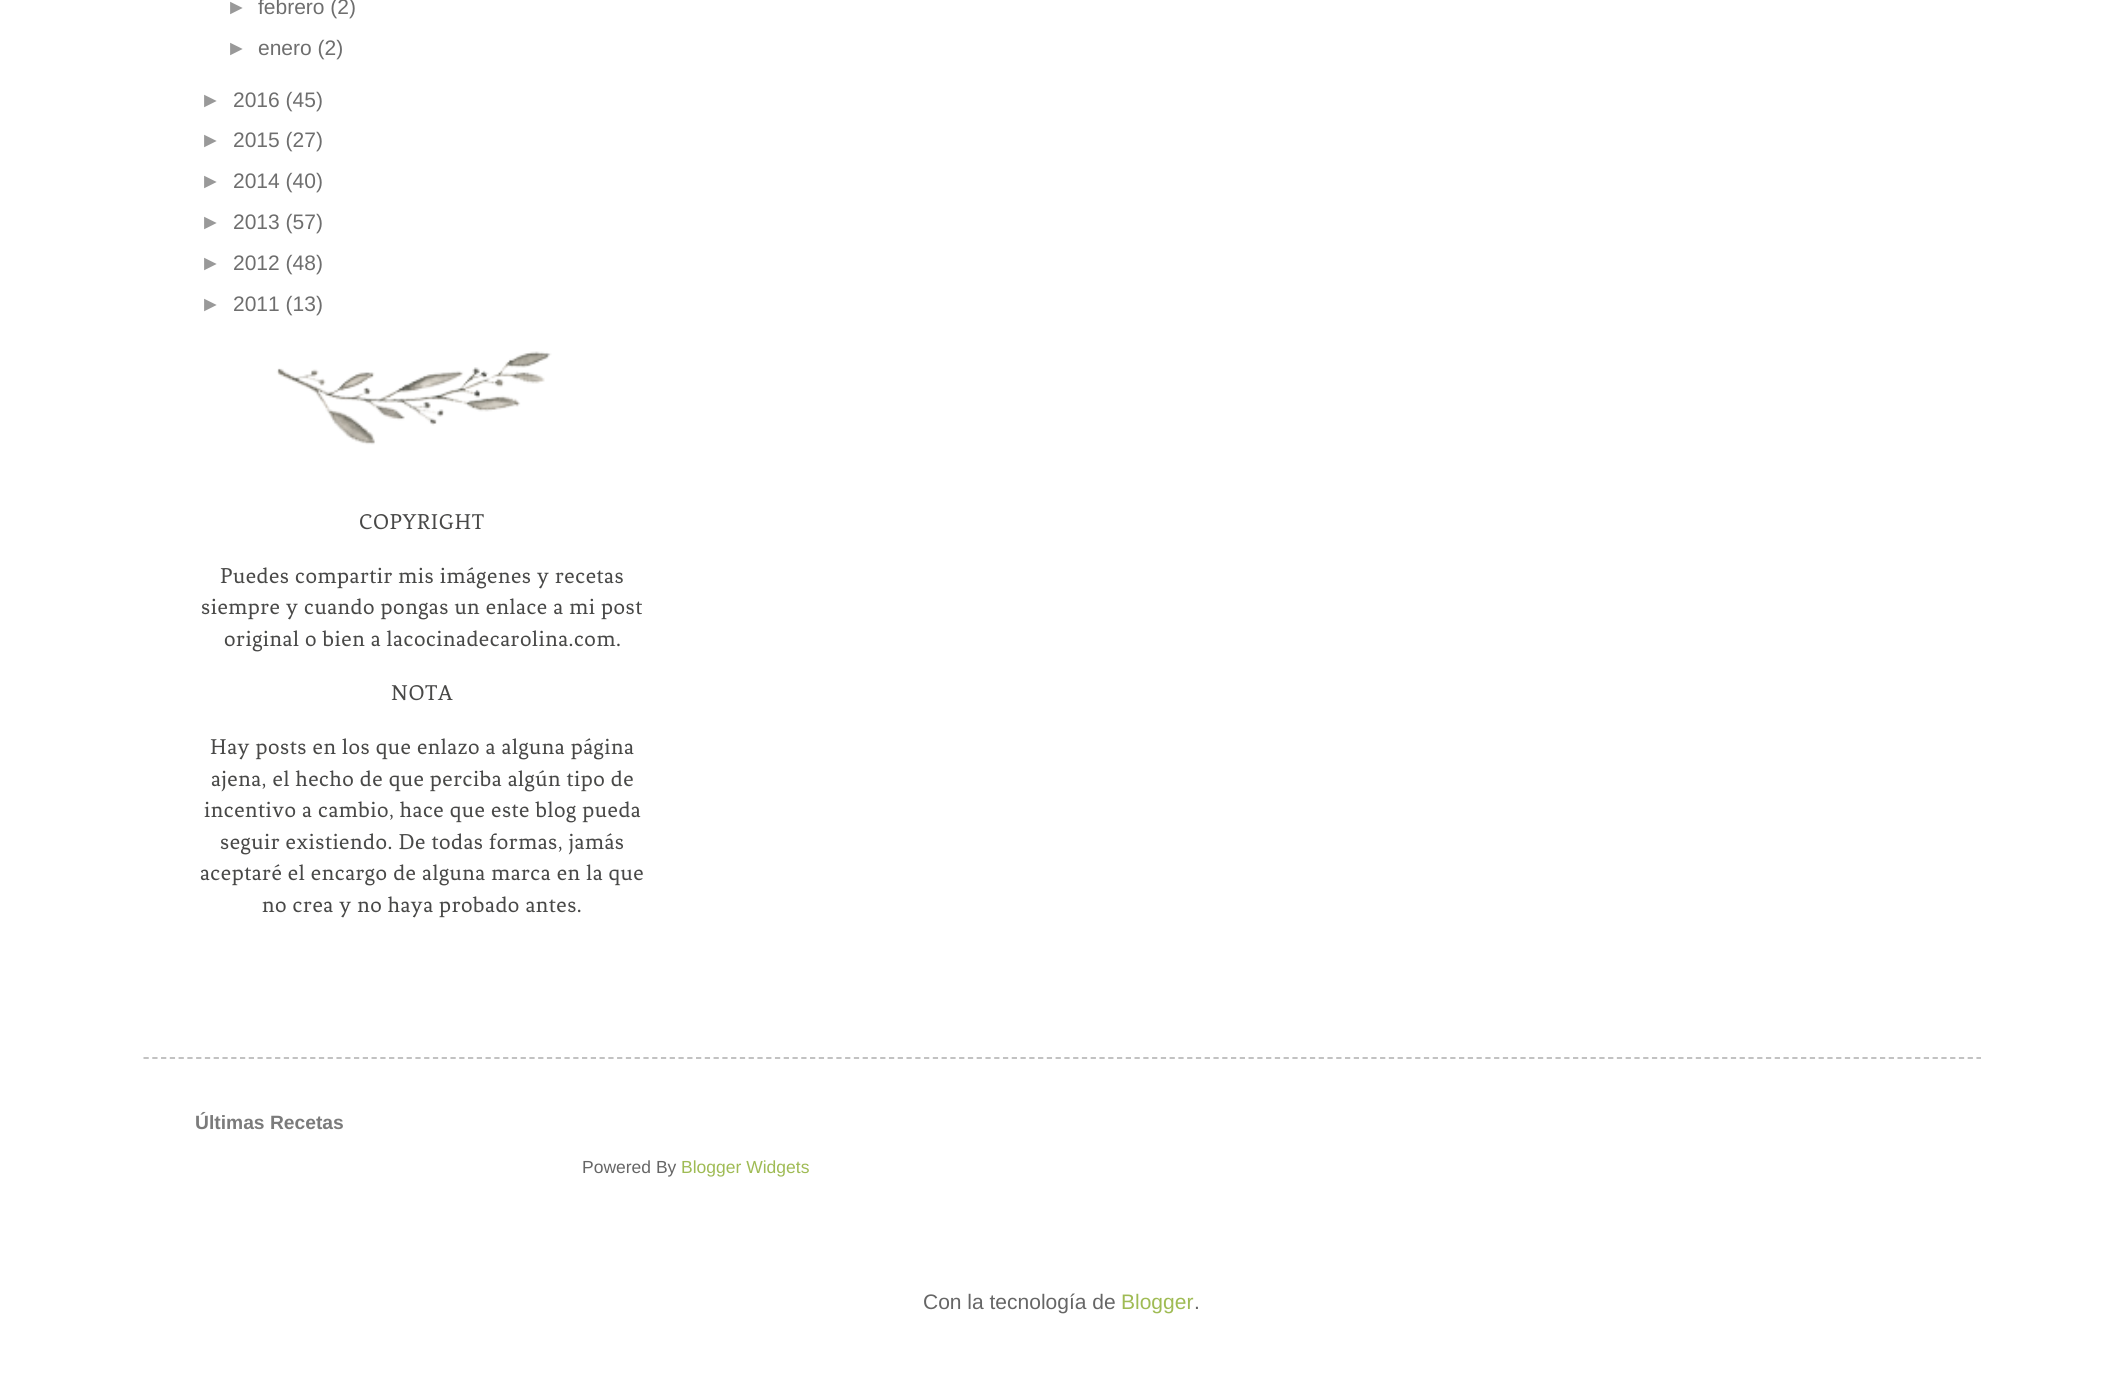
import math
import cairocffi as cairo

surface = cairo.ImageSurface(cairo.FORMAT_RGB24, 2122, 1385)
cr = cairo.Context(surface)
options = cairo.FontOptions()
options.set_hint_metrics(cairo.HINT_METRICS_OFF)
options.set_hint_style(cairo.HINT_STYLE_NONE)
cr.set_font_options(options)
cr.set_miter_limit(4)


def use_color(code):
    cr.set_source_rgb(*(v / 255 for v in bytes.fromhex(code[-6:])))


def spaced_text(x, y, s, letter, word):
    cr.move_to(x, y)
    for ch in s:
        cr.show_text(ch)
        cr.rel_move_to(letter + word * (ch == ' '), 0)


def picture(path, x, y, w, h):
    cr.save()
    cr.set_source_surface(cairo.ImageSurface.create_from_png(path), x, y)
    cr.rectangle(x, y, w, h)
    cr.fill()
    cr.restore()


use_color("#ffffff")
cr.paint()
cr.select_font_face("Liberation Sans")
cr.set_font_size(21)
use_color("#999999")
cr.move_to(226, 14)
cr.show_text("►")
use_color("#6e6e6e")
cr.move_to(258, 14)
cr.show_text("febrero (2)")
use_color("#999999")
cr.move_to(226, 55)
cr.show_text("►")
use_color("#6e6e6e")
cr.move_to(258, 55)
cr.show_text("enero (2)")
use_color("#999999")
cr.move_to(200, 107)
cr.show_text("►")
use_color("#6e6e6e")
cr.move_to(233, 107)
cr.show_text("2016 (45)")
use_color("#999999")
cr.move_to(200, 147)
cr.show_text("►")
use_color("#6e6e6e")
cr.move_to(233, 147)
cr.show_text("2015 (27)")
use_color("#999999")
cr.move_to(200, 188)
cr.show_text("►")
use_color("#6e6e6e")
cr.move_to(233, 188)
cr.show_text("2014 (40)")
use_color("#999999")
cr.move_to(200, 229)
cr.show_text("►")
use_color("#6e6e6e")
cr.move_to(233, 229)
cr.show_text("2013 (57)")
use_color("#999999")
cr.move_to(200, 270)
cr.show_text("►")
use_color("#6e6e6e")
cr.move_to(233, 270)
cr.show_text("2012 (48)")
use_color("#999999")
cr.move_to(200, 311)
cr.show_text("►")
use_color("#6e6e6e")
cr.move_to(233, 311)
cr.show_text("2011 (13)")
picture("img1.png", 276, 351, 276, 94)
cr.select_font_face("Fenix")
cr.set_font_size(22.75)
use_color("#484847")
spaced_text(359, 529, "COPYRIGHT", 0.55, 0)
spaced_text(220, 583, "Puedes compartir mis imágenes y recetas", 0.55, 0)
spaced_text(201, 614, "siempre y cuando pongas un enlace a mi post", 0.55, 0)
spaced_text(224, 646, "original o bien a lacocinadecarolina.com.", 0.55, 0)
spaced_text(391, 700, "NOTA", 0.55, 0)
spaced_text(210, 754, "Hay posts en los que enlazo a alguna página", 0.55, 0)
spaced_text(211, 786, "ajena, el hecho de que perciba algún tipo de", 0.55, 0)
spaced_text(204, 817, "incentivo a cambio, hace que este blog pueda", 0.55, 0)
spaced_text(220, 849, "seguir existiendo. De todas formas, jamás", 0.55, 0)
spaced_text(200, 880, "aceptaré el encargo de alguna marca en la que", 0.55, 0)
spaced_text(262, 912, "no crea y no haya probado antes.", 0.55, 0)
cr.new_path()
cr.move_to(143.5, 1058)
cr.line_to(1981, 1058)
use_color("#bbbbbb")
cr.set_line_width(1.8)
cr.set_dash([5.25, 3.52])
cr.stroke()
cr.select_font_face("Liberation Sans", cairo.FONT_SLANT_NORMAL, cairo.FONT_WEIGHT_BOLD)
cr.set_font_size(19.25)
use_color("#7b7b7b")
cr.move_to(195, 1129)
cr.show_text("Últimas Recetas")
cr.select_font_face("Liberation Sans")
cr.set_font_size(17.5)
use_color("#666666")
cr.move_to(582, 1173)
cr.show_text("Powered By")
use_color("#9fbb54")
cr.move_to(681, 1173)
cr.show_text("Blogger Widgets")
cr.set_font_size(21)
use_color("#666666")
cr.move_to(923, 1309)
cr.show_text("Con la tecnología de")
use_color("#9fbb54")
cr.move_to(1121, 1309)
cr.show_text("Blogger")
use_color("#666666")
cr.move_to(1194, 1309)
cr.show_text(".")
surface.write_to_png("result.png")
